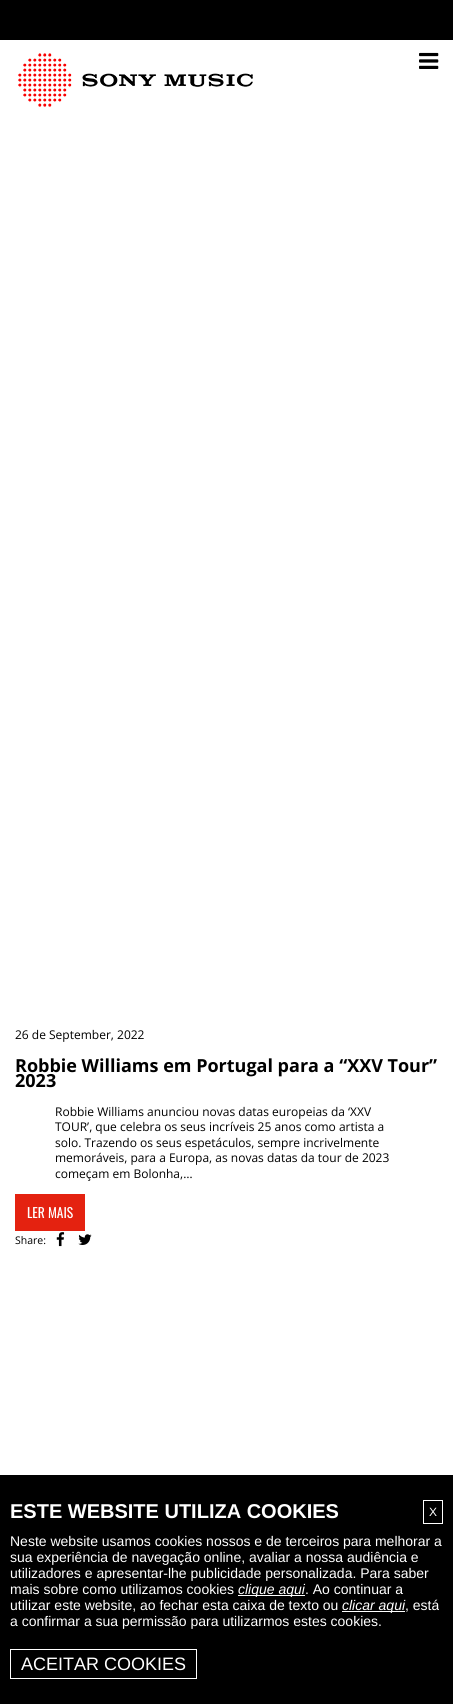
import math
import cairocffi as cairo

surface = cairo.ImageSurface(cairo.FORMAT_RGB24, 453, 1704)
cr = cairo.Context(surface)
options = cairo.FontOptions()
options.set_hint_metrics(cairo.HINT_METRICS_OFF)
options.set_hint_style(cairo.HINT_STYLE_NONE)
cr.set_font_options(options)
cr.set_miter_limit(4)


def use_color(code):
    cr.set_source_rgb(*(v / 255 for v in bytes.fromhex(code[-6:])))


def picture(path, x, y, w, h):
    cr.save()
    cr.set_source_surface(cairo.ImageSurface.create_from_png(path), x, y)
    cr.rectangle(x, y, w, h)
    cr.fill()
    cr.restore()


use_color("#ffffff")
cr.paint()
use_color("#000000")
cr.rectangle(0, 0, 453, 40)
cr.fill()
picture("img1.png", 18, 53, 235, 54)
picture("img2.png", 419, 52, 20, 17)
cr.select_font_face("Open Sans")
cr.set_font_size(12)
cr.move_to(15, 1039)
cr.show_text("26 de September, 2022")
cr.select_font_face("Open Sans", cairo.FONT_SLANT_NORMAL, cairo.FONT_WEIGHT_BOLD)
cr.set_font_size(18)
cr.move_to(15, 1072)
cr.show_text("Robbie Williams em Portugal para a “XXV Tour”")
cr.move_to(15, 1087)
cr.show_text("2023")
cr.select_font_face("Open Sans")
cr.set_font_size(12)
cr.move_to(55, 1116)
cr.show_text("Robbie Williams anunciou novas datas europeias da ‘XXV")
cr.move_to(55, 1131)
cr.show_text("TOUR’, que celebra os seus incríveis 25 anos como artista a")
cr.move_to(55, 1147)
cr.show_text("solo. Trazendo os seus espetáculos, sempre incrivelmente")
cr.move_to(55, 1162)
cr.show_text("memoráveis, para a Europa, as novas datas da tour de 2023")
cr.move_to(55, 1178)
cr.show_text("começam em Bolonha,…")
use_color("#e42210")
cr.rectangle(15, 1194, 70, 37)
cr.fill()
cr.select_font_face("Oswald")
cr.set_font_size(13.5)
use_color("#ffffff")
cr.move_to(27, 1218)
cr.show_text("LER MAIS")
cr.select_font_face("Open Sans")
cr.set_font_size(10.5)
use_color("#000000")
cr.move_to(15, 1244)
cr.show_text("Share:")
picture("img3.png", 56, 1232, 9, 15)
picture("img4.png", 78, 1234, 14, 11)
cr.rectangle(0, 1475, 453, 229)
cr.fill()
cr.select_font_face("Liberation Sans", cairo.FONT_SLANT_NORMAL, cairo.FONT_WEIGHT_BOLD)
cr.set_font_size(20)
use_color("#ffffff")
cr.move_to(10, 1518)
cr.show_text("ESTE WEBSITE UTILIZA COOKIES")
cr.rectangle(423.5, 1500.5, 19, 23)
cr.set_line_width(1)
cr.stroke()
cr.select_font_face("Liberation Sans")
cr.set_font_size(12)
cr.move_to(429, 1516)
cr.show_text("X")
cr.set_font_size(14)
cr.move_to(10, 1546)
cr.show_text("Neste website usamos cookies nossos e de terceiros para melhorar a")
cr.move_to(10, 1562)
cr.show_text("sua experiência de navegação online, avaliar a nossa audiência e")
cr.move_to(10, 1578)
cr.show_text("utilizadores e apresentar-lhe publicidade personalizada. Para saber")
cr.move_to(10, 1594)
cr.show_text("mais sobre como utilizamos cookies")
cr.rectangle(238, 1595, 67, 1)
cr.fill()
cr.select_font_face("Liberation Sans", cairo.FONT_SLANT_ITALIC)
cr.move_to(238, 1594)
cr.show_text("clique aqui")
cr.select_font_face("Liberation Sans")
cr.move_to(305, 1594)
cr.show_text(". Ao continuar a")
cr.move_to(10, 1610)
cr.show_text("utilizar este website, ao fechar esta caixa de texto ou")
cr.rectangle(342, 1611, 63, 1)
cr.fill()
cr.select_font_face("Liberation Sans", cairo.FONT_SLANT_ITALIC)
cr.move_to(342, 1610)
cr.show_text("clicar aqui")
cr.select_font_face("Liberation Sans")
cr.move_to(405, 1610)
cr.show_text(", está")
cr.move_to(10, 1626)
cr.show_text("a confirmar a sua permissão para utilizarmos estes cookies.")
cr.rectangle(10.5, 1649.5, 186, 29)
cr.stroke()
cr.set_font_size(18)
cr.move_to(21, 1670)
cr.show_text("ACEITAR COOKIES")
surface.write_to_png("result.png")
